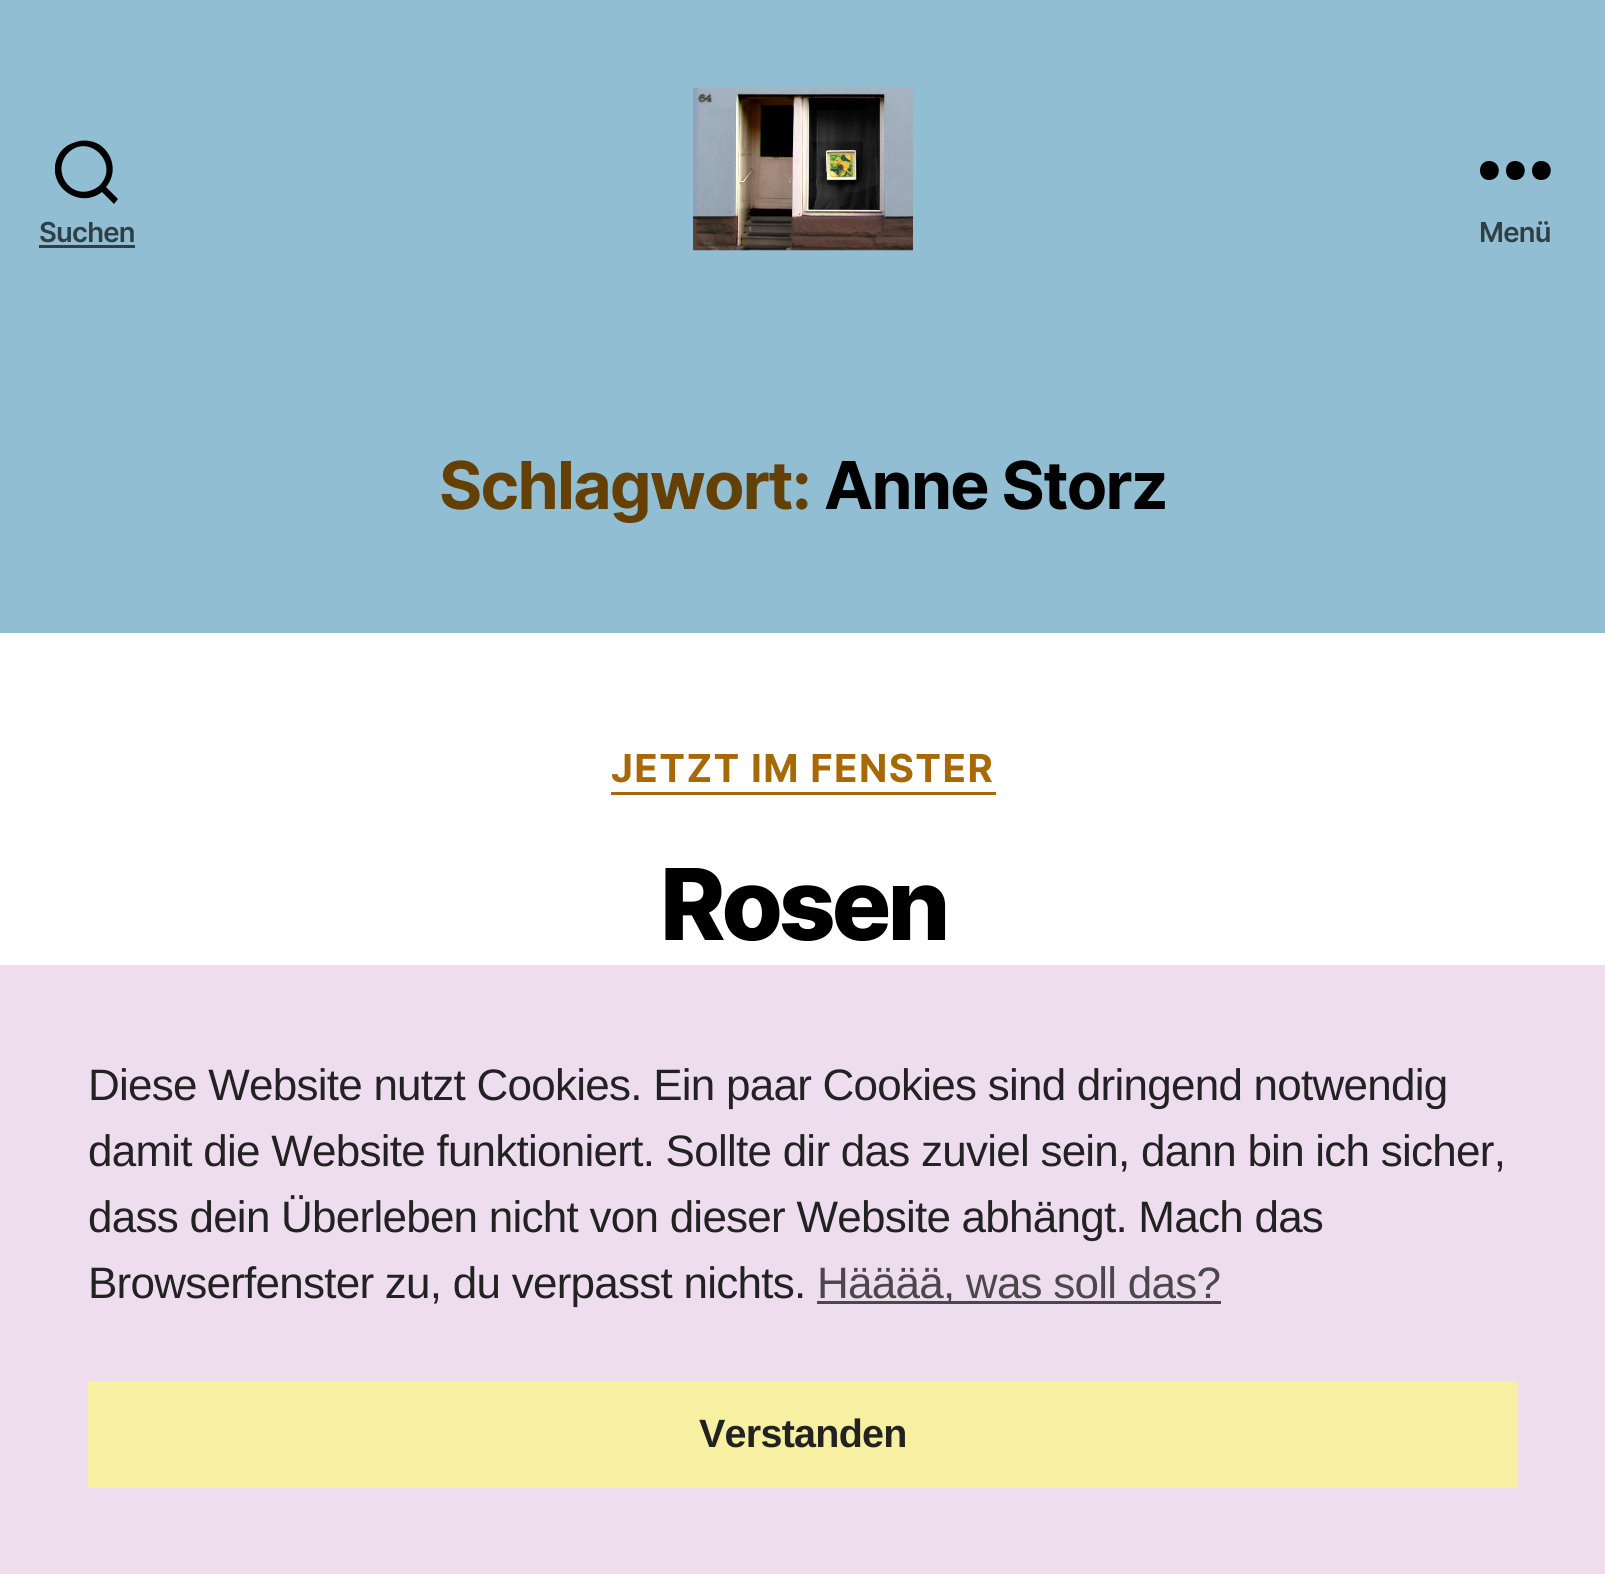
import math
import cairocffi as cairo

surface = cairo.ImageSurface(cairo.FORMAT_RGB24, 1605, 1574)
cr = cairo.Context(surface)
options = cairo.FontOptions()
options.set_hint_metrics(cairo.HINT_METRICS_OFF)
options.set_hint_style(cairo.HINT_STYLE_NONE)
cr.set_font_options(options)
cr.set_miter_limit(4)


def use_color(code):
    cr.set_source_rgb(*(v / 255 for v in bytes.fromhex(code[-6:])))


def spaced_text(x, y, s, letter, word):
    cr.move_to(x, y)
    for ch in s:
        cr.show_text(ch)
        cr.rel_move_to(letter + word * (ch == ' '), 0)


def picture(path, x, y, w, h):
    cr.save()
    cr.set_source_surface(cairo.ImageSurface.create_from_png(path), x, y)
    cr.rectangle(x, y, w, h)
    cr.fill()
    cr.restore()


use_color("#ffffff")
cr.paint()
use_color("#91bed2")
cr.rectangle(0, 0, 1605, 633)
cr.fill()
cr.save()
cr.rectangle(55, 138, 63, 68)
cr.clip()
use_color("#000000")
cr.new_path()
cr.move_to(106, 187)
cr.line_to(118, 199)
cr.line_to(114, 204)
cr.line_to(102, 192)
cr.curve_to(79, 210, 46, 186, 57, 158)
cr.curve_to(60, 151, 66, 145, 73, 143)
cr.curve_to(82, 139, 92, 140, 100, 145)
cr.curve_to(114, 155, 117, 174, 106, 187)
cr.close_path()
cr.move_to(100, 185)
cr.curve_to(120, 164, 89, 132, 68, 153)
cr.curve_to(51, 171, 70, 199, 92, 190)
cr.curve_to(95, 189, 98, 187, 100, 185)
cr.close_path()
cr.fill()
cr.restore()
cr.select_font_face("Inter SemiBold")
cr.set_font_size(27.5)
use_color("#2e3f46")
spaced_text(39, 242, "Suchen", -0.75, 0)
cr.rectangle(39, 245, 96, 3)
cr.fill()
picture("img1.png", 693, 88, 220, 163)
use_color("#000000")
cr.set_fill_rule(cairo.FILL_RULE_EVEN_ODD)
cr.new_path()
cr.move_to(1489, 180)
cr.curve_to(1477, 180, 1477, 161, 1489, 161)
cr.curve_to(1502, 161, 1502, 180, 1489, 180)
cr.close_path()
cr.move_to(1515, 180)
cr.curve_to(1503, 180, 1503, 161, 1515, 161)
cr.curve_to(1528, 161, 1528, 180, 1515, 180)
cr.close_path()
cr.move_to(1541, 180)
cr.curve_to(1529, 180, 1529, 161, 1541, 161)
cr.curve_to(1554, 161, 1554, 180, 1541, 180)
cr.close_path()
cr.fill()
use_color("#2e3f46")
spaced_text(1479, 242, "Menü", -0.75, 0)
cr.select_font_face("Inter", cairo.FONT_SLANT_NORMAL, cairo.FONT_WEIGHT_BOLD)
cr.set_font_size(66)
use_color("#654005")
spaced_text(439, 509, "Schlagwort:", -1.75, 0)
use_color("#000000")
spaced_text(824, 509, "Anne Storz", -1.75, 0)
use_color("#a76906")
cr.rectangle(611, 792, 385, 3)
cr.fill()
cr.set_font_size(38.5)
spaced_text(611, 782, "JETZT IM FENSTER", 1.4, 0)
cr.select_font_face("Inter ExtraBold")
cr.set_font_size(99)
use_color("#000000")
spaced_text(660, 940, "Rosen", -4, 0)
use_color("#eeddee")
cr.rectangle(0, 965, 1605, 609)
cr.fill()
cr.select_font_face("Liberation Sans")
cr.set_font_size(44)
use_color("#222222")
spaced_text(88, 1100, "Diese Website nutzt Cookies. Ein paar Cookies sind dringend notwendig", -0.75, 0)
spaced_text(88, 1166, "damit die Website funktioniert. Sollte dir das zuviel sein, dann bin ich sicher,", -0.75, 0)
spaced_text(88, 1232, "dass dein Überleben nicht von dieser Website abhängt. Mach das", -0.75, 0)
spaced_text(88, 1298, "Browserfenster zu, du verpasst nichts.", -0.75, 0)
use_color("#4b474b")
cr.rectangle(817, 1301, 404, 3)
cr.fill()
spaced_text(817, 1298, "Hääää, was soll das?", -0.75, 0)
use_color("#f7f0a3")
cr.rectangle(88, 1381, 1430, 107)
cr.fill()
cr.select_font_face("Liberation Sans", cairo.FONT_SLANT_NORMAL, cairo.FONT_WEIGHT_BOLD)
cr.set_font_size(39.5)
use_color("#222222")
spaced_text(699, 1447, "Verstanden", -0.75, 0)
surface.write_to_png("result.png")
